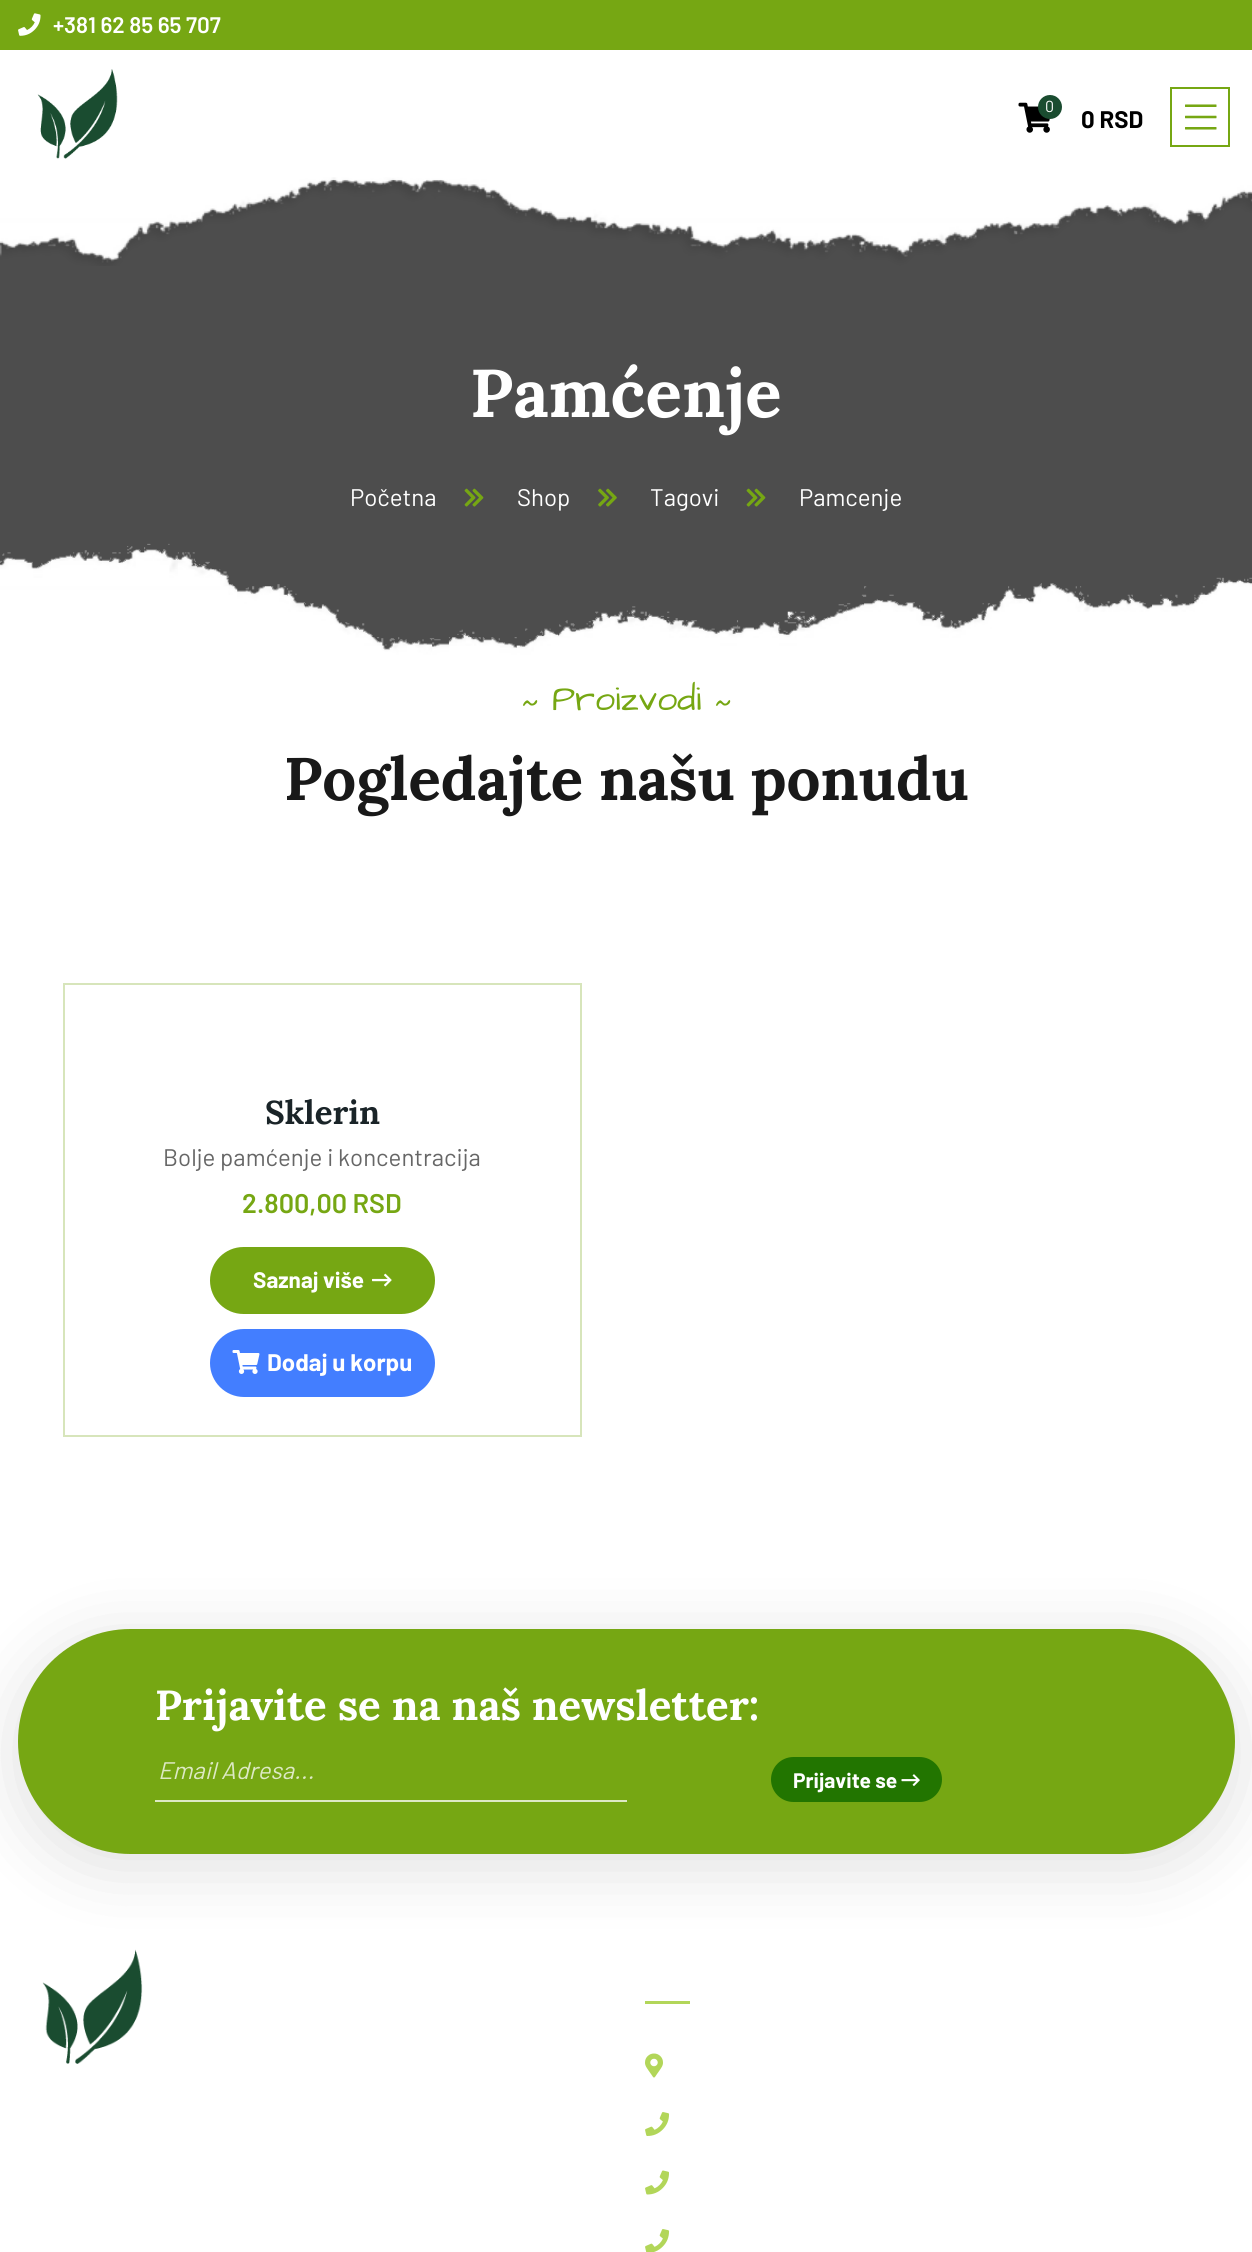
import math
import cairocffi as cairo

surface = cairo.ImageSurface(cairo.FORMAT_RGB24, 1252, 2252)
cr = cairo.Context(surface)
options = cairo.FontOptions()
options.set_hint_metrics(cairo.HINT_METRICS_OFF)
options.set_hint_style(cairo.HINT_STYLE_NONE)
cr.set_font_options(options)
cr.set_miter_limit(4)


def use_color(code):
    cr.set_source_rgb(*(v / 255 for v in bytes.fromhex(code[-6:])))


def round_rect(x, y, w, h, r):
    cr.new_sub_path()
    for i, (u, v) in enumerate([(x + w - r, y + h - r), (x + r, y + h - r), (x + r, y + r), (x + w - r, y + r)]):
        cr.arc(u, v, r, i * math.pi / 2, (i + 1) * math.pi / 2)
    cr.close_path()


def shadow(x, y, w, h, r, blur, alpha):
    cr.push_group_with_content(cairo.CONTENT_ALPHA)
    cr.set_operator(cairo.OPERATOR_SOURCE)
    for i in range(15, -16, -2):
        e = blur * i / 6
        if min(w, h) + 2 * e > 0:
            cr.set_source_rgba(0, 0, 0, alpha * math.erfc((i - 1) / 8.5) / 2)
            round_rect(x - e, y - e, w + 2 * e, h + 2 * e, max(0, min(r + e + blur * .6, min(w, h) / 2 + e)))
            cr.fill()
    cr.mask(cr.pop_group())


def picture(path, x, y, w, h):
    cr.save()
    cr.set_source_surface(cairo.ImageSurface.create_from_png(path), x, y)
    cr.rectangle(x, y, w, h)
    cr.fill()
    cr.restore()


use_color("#ffffff")
cr.paint()
use_color("#76a713")
cr.rectangle(0, 0, 1252, 50)
cr.fill()
picture("img1.png", 18, 13, 23, 23)
cr.select_font_face("Barlow SemiBold")
cr.set_font_size(22.5)
use_color("#ffffff")
cr.move_to(53, 33)
cr.show_text("+381 62 85 65 707")
picture("img2.png", 37, 69, 81, 90)
picture("img3.png", 1018, 102, 32, 31)
use_color("#1a4c30")
cr.arc(1050, 107, 12, 0, 2 * math.pi)
cr.fill()
cr.select_font_face("Barlow")
cr.set_font_size(16)
use_color("#ffffff")
cr.move_to(1045, 112)
cr.show_text("0")
cr.select_font_face("Barlow", cairo.FONT_SLANT_NORMAL, cairo.FONT_WEIGHT_BOLD)
cr.set_font_size(24)
use_color("#000000")
cr.move_to(1081, 128)
cr.show_text("0 RSD")
cr.rectangle(1171, 88, 58, 58)
use_color("#76a713")
cr.stroke()
picture("img4.png", 1185, 104, 32, 26)
use_color("#4d4d4d")
cr.rectangle(0, 180, 1252, 470)
cr.fill()
picture("img5.png", 0, 177, 1252, 89)
cr.select_font_face("Lora", cairo.FONT_SLANT_NORMAL, cairo.FONT_WEIGHT_BOLD)
cr.set_font_size(67.5)
use_color("#ffffff")
cr.move_to(470, 417)
cr.show_text("Pamćenje")
cr.select_font_face("Barlow")
cr.set_font_size(24)
cr.move_to(350, 506)
cr.show_text("Početna")
picture("img6.png", 464, 488, 20, 19)
cr.move_to(517, 506)
cr.show_text("Shop")
picture("img7.png", 598, 488, 19, 19)
cr.move_to(650, 506)
cr.show_text("Tagovi")
picture("img6.png", 746, 488, 20, 19)
cr.move_to(799, 506)
cr.show_text("Pamcenje")
picture("img8.png", 0, 543, 1252, 129)
cr.select_font_face("Architects Daughter")
cr.set_font_size(36)
use_color("#76a713")
cr.move_to(522, 723)
cr.show_text("~")
cr.move_to(552, 710)
cr.show_text("Proizvodi")
cr.move_to(715, 723)
cr.show_text("~")
cr.select_font_face("Lora", cairo.FONT_SLANT_NORMAL, cairo.FONT_WEIGHT_BOLD)
cr.set_font_size(60)
use_color("#191919")
cr.move_to(284, 800)
cr.show_text("Pogledajte našu ponudu")
cr.rectangle(64, 984, 517, 452)
use_color("#d7e5bb")
cr.stroke()
cr.set_font_size(33)
use_color("#1a2428")
cr.move_to(265, 1124)
cr.show_text("Sklerin")
cr.select_font_face("Barlow")
cr.set_font_size(24)
use_color("#666666")
cr.move_to(163, 1166)
cr.show_text("Bolje pamćenje i koncentracija")
cr.select_font_face("Barlow SemiBold")
cr.set_font_size(27)
use_color("#76a713")
cr.move_to(242, 1213)
cr.show_text("2.800,00 RSD")
round_rect(210, 1247, 225, 67, 33.5)
cr.fill()
cr.select_font_face("Barlow", cairo.FONT_SLANT_NORMAL, cairo.FONT_WEIGHT_BOLD)
cr.set_font_size(22.5)
use_color("#ffffff")
cr.move_to(253, 1288)
cr.show_text("Saznaj više")
picture("img9.png", 372, 1273, 20, 14)
use_color("#437eff")
round_rect(210, 1329, 225, 68, 34)
cr.fill()
picture("img10.png", 232, 1350, 28, 24)
cr.set_font_size(24)
use_color("#ffffff")
cr.move_to(267, 1371)
cr.show_text("Dodaj u korpu")
picture("img12.png", 42, 1949, 101, 115)
use_color("#000000")
shadow(18, 1641, 1217, 225, 112.5, 34.5, 0.13)
use_color("#76a713")
round_rect(18, 1629, 1217, 225, 112.5)
cr.fill()
cr.select_font_face("Lora", cairo.FONT_SLANT_NORMAL, cairo.FONT_WEIGHT_BOLD)
cr.set_font_size(42)
use_color("#ffffff")
cr.move_to(155, 1720)
cr.show_text("Prijavite se na naš newsletter:")
use_color("#dde9c4")
cr.rectangle(155, 1800, 472, 2)
cr.fill()
cr.select_font_face("Barlow", cairo.FONT_SLANT_ITALIC)
cr.set_font_size(24)
cr.move_to(158, 1779)
cr.show_text("Email Adresa...")
use_color("#227500")
round_rect(771, 1757, 171, 45, 22.5)
cr.fill()
cr.select_font_face("Barlow", cairo.FONT_SLANT_NORMAL, cairo.FONT_WEIGHT_BOLD)
cr.set_font_size(21)
use_color("#ffffff")
cr.move_to(793, 1788)
cr.show_text("Prijavite se")
picture("img11.png", 901, 1774, 19, 12)
use_color("#b2d659")
cr.rectangle(645, 2001, 45, 3)
cr.fill()
picture("img13.png", 645, 2053, 18, 25)
picture("img14.png", 645, 2112, 25, 24)
picture("img15.png", 645, 2170, 24, 25)
picture("img16.png", 645, 2229, 25, 23)
surface.write_to_png("result.png")
